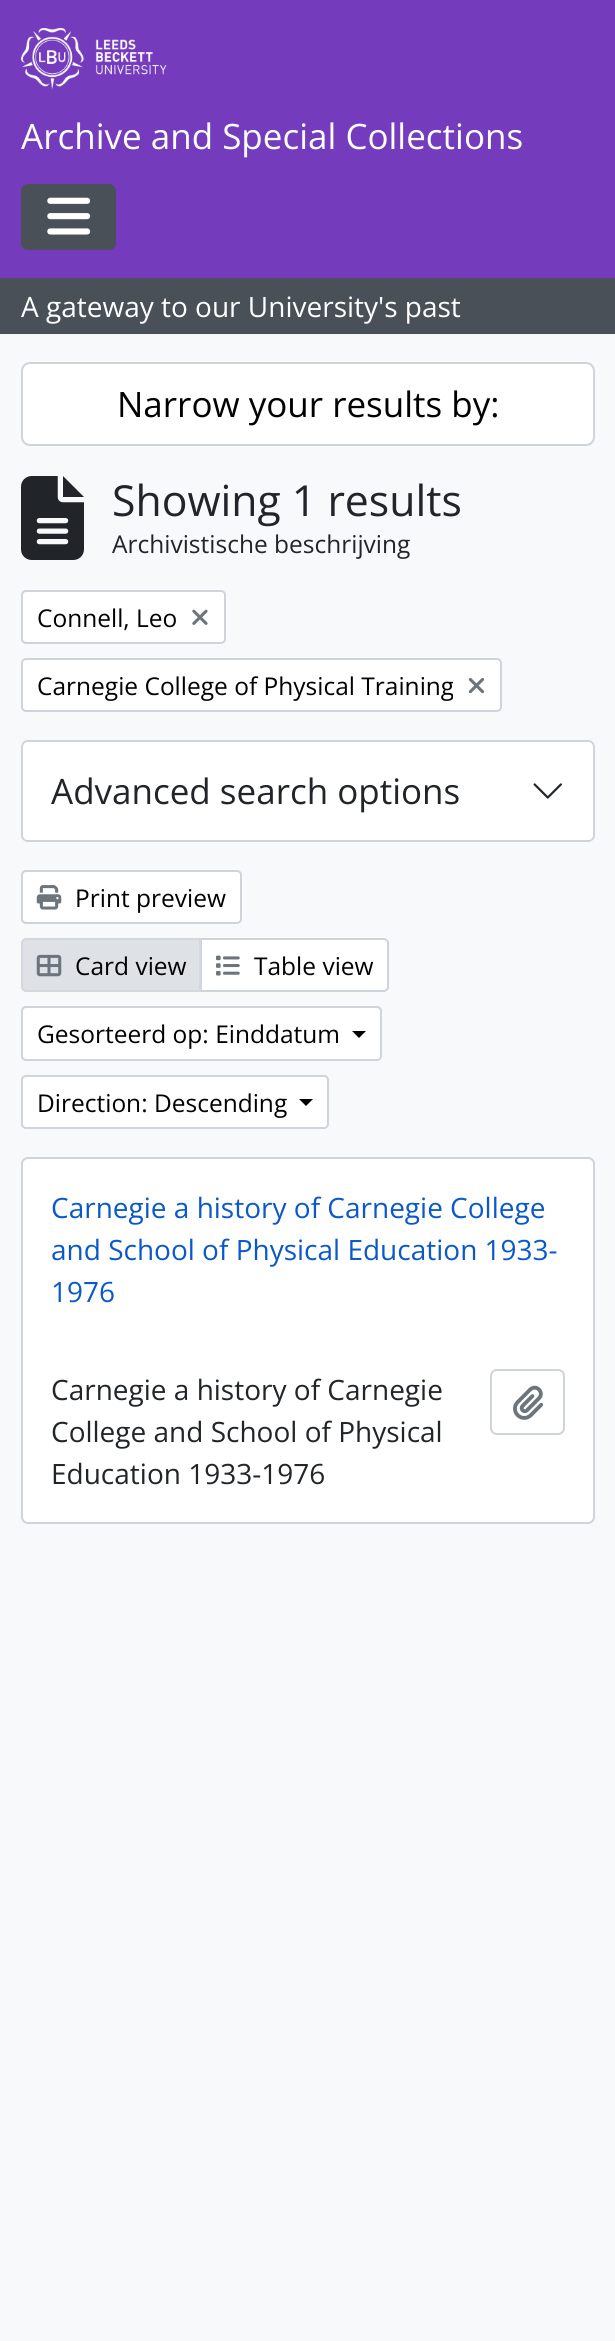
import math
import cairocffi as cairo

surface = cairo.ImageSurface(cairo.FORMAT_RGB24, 615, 2341)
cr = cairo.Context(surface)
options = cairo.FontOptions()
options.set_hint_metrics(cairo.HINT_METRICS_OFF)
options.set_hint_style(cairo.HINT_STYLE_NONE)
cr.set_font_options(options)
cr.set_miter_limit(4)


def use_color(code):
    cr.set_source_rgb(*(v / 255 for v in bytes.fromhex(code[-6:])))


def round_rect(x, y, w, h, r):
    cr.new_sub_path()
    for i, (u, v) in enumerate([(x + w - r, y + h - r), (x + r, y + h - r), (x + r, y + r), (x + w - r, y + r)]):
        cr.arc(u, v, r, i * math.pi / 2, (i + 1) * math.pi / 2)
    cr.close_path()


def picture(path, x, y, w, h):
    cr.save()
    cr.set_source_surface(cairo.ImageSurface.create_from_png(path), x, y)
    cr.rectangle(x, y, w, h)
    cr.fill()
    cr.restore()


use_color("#f8f9fa")
cr.paint()
use_color("#753bbd")
cr.rectangle(0, 0, 615, 278)
cr.fill()
picture("img1.png", 21, 28, 146, 62)
cr.select_font_face("Open Sans")
cr.set_font_size(35)
use_color("#ffffff")
cr.move_to(21, 149)
cr.show_text("Archive and Special Collections")
use_color("#495057")
round_rect(22, 185, 93, 64, 6)
cr.fill_preserve()
cr.stroke()
picture("img2.png", 47, 197, 44, 38)
cr.rectangle(0, 278, 615, 56)
cr.fill()
cr.set_font_size(28)
use_color("#ffffff")
cr.move_to(21, 317)
cr.show_text("A gateway to our University's past")
round_rect(22, 363, 572, 82, 8)
cr.fill_preserve()
use_color("#ced4da")
cr.stroke()
cr.set_font_size(35)
use_color("#000000")
cr.move_to(117, 417)
cr.show_text("Narrow your results by:")
picture("img3.png", 21, 476, 63, 84)
cr.set_font_size(42.75)
use_color("#212529")
cr.move_to(112, 516)
cr.show_text("Showing 1 results")
cr.set_font_size(24.5)
cr.move_to(112, 553)
cr.show_text("Archivistische beschrijving")
use_color("#ffffff")
round_rect(22, 591, 203, 52, 4)
cr.fill_preserve()
use_color("#ced4da")
cr.stroke()
use_color("#000000")
cr.move_to(37, 627)
cr.show_text("Connell, Leo")
picture("img4.png", 192, 609, 16, 16)
use_color("#ffffff")
round_rect(22, 659, 479, 52, 4)
cr.fill_preserve()
use_color("#ced4da")
cr.stroke()
cr.save()
cr.rectangle(37, 667, 416, 37)
cr.clip()
use_color("#000000")
cr.move_to(37, 695)
cr.show_text("Carnegie College of Physical Training")
cr.restore()
picture("img5.png", 468, 677, 17, 17)
round_rect(22, 741, 572, 100, 6)
cr.stroke()
use_color("#ffffff")
round_rect(23, 742, 570, 98, 5)
cr.fill()
cr.set_font_size(35)
use_color("#212529")
cr.move_to(51, 804)
cr.show_text("Advanced search options")
picture("img6.png", 533, 783, 29, 16)
use_color("#ffffff")
round_rect(22, 871, 219, 52, 4)
cr.fill_preserve()
use_color("#ced4da")
cr.stroke()
picture("img7.png", 36, 885, 26, 25)
cr.set_font_size(24.5)
use_color("#000000")
cr.move_to(75, 907)
cr.show_text("Print preview")
use_color("#ffffff")
cr.new_path()
cr.move_to(201, 939)
cr.line_to(384, 939)
cr.curve_to(386, 939, 388, 941, 388, 943)
cr.line_to(388, 987)
cr.curve_to(388, 989, 386, 991, 384, 991)
cr.line_to(201, 991)
cr.close_path()
cr.fill_preserve()
use_color("#ced4da")
cr.stroke()
use_color("#dee2e6")
cr.new_path()
cr.move_to(26, 939)
cr.line_to(200, 939)
cr.line_to(200, 991)
cr.line_to(26, 991)
cr.curve_to(24, 991, 22, 989, 22, 987)
cr.line_to(22, 943)
cr.curve_to(22, 941, 24, 939, 26, 939)
cr.close_path()
cr.fill_preserve()
use_color("#d3d8de")
cr.stroke()
picture("img8.png", 36, 954, 26, 23)
use_color("#000000")
cr.move_to(75, 975)
cr.show_text("Card view")
picture("img9.png", 216, 955, 24, 21)
cr.move_to(254, 975)
cr.show_text("Table view")
use_color("#ffffff")
round_rect(22, 1007, 359, 53, 4)
cr.fill_preserve()
use_color("#ced4da")
cr.stroke()
use_color("#000000")
cr.move_to(37, 1043)
cr.show_text("Gesorteerd op: Einddatum")
cr.new_path()
cr.move_to(352, 1031)
cr.line_to(366, 1031)
cr.line_to(359, 1038)
cr.close_path()
cr.fill()
use_color("#ffffff")
round_rect(22, 1076, 306, 52, 4)
cr.fill_preserve()
use_color("#ced4da")
cr.stroke()
use_color("#000000")
cr.move_to(37, 1112)
cr.show_text("Direction: Descending")
cr.new_path()
cr.move_to(299, 1099)
cr.line_to(313, 1099)
cr.line_to(306, 1106)
cr.close_path()
cr.fill()
use_color("#ffffff")
round_rect(22, 1158, 572, 365, 6)
cr.fill_preserve()
use_color("#ced4da")
cr.stroke()
cr.set_font_size(28)
use_color("#0a58ca")
cr.move_to(51, 1218)
cr.show_text("Carnegie a history of Carnegie College")
cr.move_to(51, 1260)
cr.show_text("and School of Physical Education 1933-")
cr.move_to(51, 1302)
cr.show_text("1976")
use_color("#212529")
cr.move_to(51, 1400)
cr.show_text("Carnegie a history of Carnegie")
cr.move_to(51, 1442)
cr.show_text("College and School of Physical")
cr.move_to(51, 1484)
cr.show_text("Education 1933-1976")
round_rect(491, 1370, 73, 64, 6)
use_color("#ced4da")
cr.stroke()
picture("img10.png", 513, 1385, 31, 35)
surface.write_to_png("result.png")
